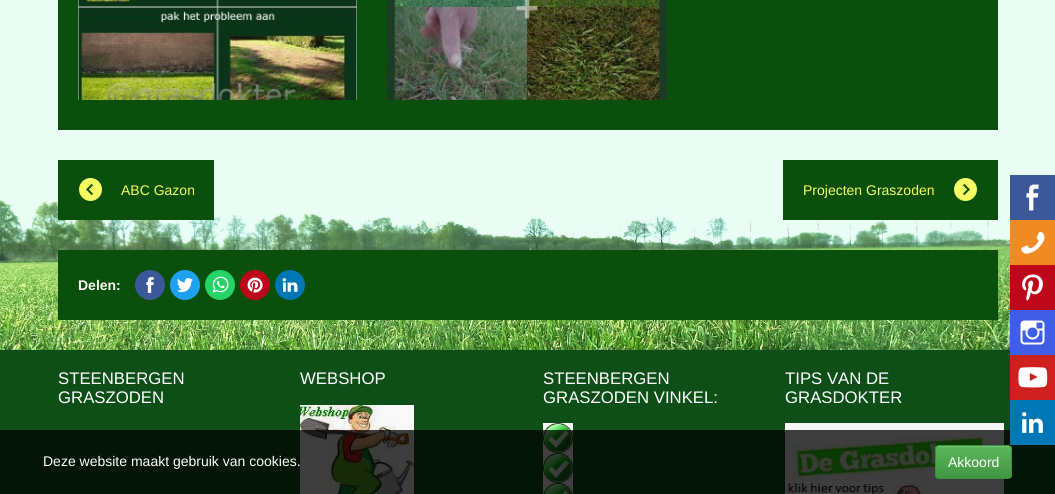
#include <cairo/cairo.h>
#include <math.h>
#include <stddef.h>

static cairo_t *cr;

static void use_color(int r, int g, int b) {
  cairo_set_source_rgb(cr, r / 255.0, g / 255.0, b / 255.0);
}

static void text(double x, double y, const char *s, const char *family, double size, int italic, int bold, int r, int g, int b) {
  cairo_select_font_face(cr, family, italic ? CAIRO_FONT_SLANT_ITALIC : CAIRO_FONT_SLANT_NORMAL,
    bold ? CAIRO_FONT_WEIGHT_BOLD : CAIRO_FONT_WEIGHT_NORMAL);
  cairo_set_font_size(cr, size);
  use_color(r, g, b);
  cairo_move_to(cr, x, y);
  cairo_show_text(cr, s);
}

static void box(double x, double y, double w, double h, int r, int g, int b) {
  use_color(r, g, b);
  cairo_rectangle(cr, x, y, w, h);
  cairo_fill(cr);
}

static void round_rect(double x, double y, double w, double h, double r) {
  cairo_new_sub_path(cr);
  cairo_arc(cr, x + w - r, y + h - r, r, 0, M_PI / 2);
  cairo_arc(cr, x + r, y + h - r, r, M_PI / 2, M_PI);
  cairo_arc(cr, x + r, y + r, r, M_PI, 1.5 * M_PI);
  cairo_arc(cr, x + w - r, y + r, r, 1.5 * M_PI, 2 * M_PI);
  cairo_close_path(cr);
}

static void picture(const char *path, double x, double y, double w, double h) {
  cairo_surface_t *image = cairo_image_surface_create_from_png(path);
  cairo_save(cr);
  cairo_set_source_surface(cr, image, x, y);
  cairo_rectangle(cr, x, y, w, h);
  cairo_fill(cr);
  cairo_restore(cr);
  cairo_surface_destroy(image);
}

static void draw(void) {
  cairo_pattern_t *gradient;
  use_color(255, 255, 255);
  cairo_paint(cr);
  picture("img_01.png", 0, 0, 1055, 350);
  box(58, 0, 940, 130, 10, 79, 12);
  picture("img_02.png", 78, 0, 279, 100);
  picture("img_03.png", 387, 0, 280, 100);
  box(58, 160, 156, 60, 10, 79, 12);
  picture("img_04.png", 79, 178, 23, 23);
  box(783, 160, 215, 60, 10, 79, 12);
  picture("img_05.png", 954, 178, 23, 23);
  box(58, 250, 940, 70, 10, 79, 12);
  picture("img_06.png", 135, 270, 30, 30);
  picture("img_07.png", 170, 270, 30, 30);
  picture("img_08.png", 205, 270, 30, 30);
  picture("img_09.png", 240, 270, 30, 30);
  picture("img_10.png", 275, 270, 30, 30);
  box(0, 350, 1055, 144, 14, 79, 24);
  picture("img_11.png", 300, 405, 114, 89);
  picture("img_12.png", 543, 423, 30, 30);
  picture("img_13.png", 543, 453, 30, 30);
  picture("img_14.png", 543, 483, 30, 11);
  picture("img_15.png", 785, 423, 219, 71);
  box(1010, 175, 45, 45, 59, 89, 152);
  picture("img_16.png", 1026, 184, 13, 27);
  box(1010, 220, 45, 45, 240, 139, 36);
  picture("img_17.png", 1021, 232, 24, 22);
  box(1010, 265, 45, 45, 189, 8, 28);
  picture("img_18.png", 1022, 274, 21, 27);
  box(1010, 310, 45, 45, 64, 93, 230);
  picture("img_19.png", 1020, 320, 25, 25);
  box(1010, 355, 45, 45, 205, 32, 31);
  picture("img_20.png", 1018, 367, 30, 21);
  cairo_set_source_rgba(cr, 0, 0, 0, 0.75);
  cairo_rectangle(cr, 0, 430, 1055, 64);
  cairo_fill(cr);
  box(1010, 400, 45, 45, 0, 119, 181);
  picture("img_21.png", 1022, 412, 21, 21);
  cairo_save(cr);
  round_rect(935, 445, 77, 34, 4);
  cairo_clip(cr);
  gradient = cairo_pattern_create_linear(974, 446, 974, 478);
  cairo_pattern_add_color_stop_rgba(gradient, 0, 0.361, 0.722, 0.361, 1);
  cairo_pattern_add_color_stop_rgba(gradient, 1, 0.255, 0.588, 0.255, 1);
  cairo_set_source(cr, gradient);
  cairo_pattern_destroy(gradient);
  cairo_rectangle(cr, 935, 446, 77, 32);
  cairo_fill(cr);
  cairo_restore(cr);
  use_color(116, 194, 116);
  cairo_new_path(cr);
  cairo_move_to(cr, 939, 447);
  cairo_line_to(cr, 1008, 447);
  cairo_curve_to(cr, 1010, 447, 1011, 448, 1011, 450);
  cairo_curve_to(cr, 1011, 443, 1001, 446, 996, 446);
  cairo_line_to(cr, 950, 446);
  cairo_curve_to(cr, 946, 446, 936, 443, 936, 450);
  cairo_curve_to(cr, 936, 448, 937, 447, 939, 447);
  cairo_close_path(cr);
  cairo_fill(cr);
  round_rect(935.5, 445.5, 76, 33, 3.5);
  use_color(62, 143, 62);
  cairo_set_line_width(cr, 1);
  cairo_stroke(cr);
  text(121, 195, "ABC Gazon", "Liberation Sans", 14, 0, 0, 247, 252, 96);
  text(803, 195, "Projecten Graszoden", "Liberation Sans", 14, 0, 0, 247, 252, 96);
  text(78, 290, "Delen:", "Liberation Sans", 14, 0, 1, 250, 250, 245);
  text(58, 384, "STEENBERGEN", "Liberation Sans", 16.75, 0, 0, 255, 255, 255);
  text(58, 403, "GRASZODEN", "Liberation Sans", 16.75, 0, 0, 255, 255, 255);
  text(300, 384, "WEBSHOP", "Liberation Sans", 16.75, 0, 0, 255, 255, 255);
  text(543, 384, "STEENBERGEN", "Liberation Sans", 16.75, 0, 0, 255, 255, 255);
  text(543, 403, "GRASZODEN VINKEL:", "Liberation Sans", 16.75, 0, 0, 255, 255, 255);
  text(785, 384, "TIPS VAN DE", "Liberation Sans", 16.75, 0, 0, 255, 255, 255);
  text(785, 403, "GRASDOKTER", "Liberation Sans", 16.75, 0, 0, 255, 255, 255);
  text(43, 466, "Deze website maakt gebruik van cookies.", "Liberation Sans", 14, 0, 0, 255, 255, 255);
  text(948, 467, "Akkoord", "Liberation Sans", 14, 0, 0, 255, 255, 255);
}

int main(void) {
  cairo_surface_t *surface = cairo_image_surface_create(CAIRO_FORMAT_RGB24, 1055, 494);
  cr = cairo_create(surface);
  cairo_font_options_t *options = cairo_font_options_create();
  cairo_font_options_set_hint_metrics(options, CAIRO_HINT_METRICS_OFF);
  cairo_font_options_set_hint_style(options, CAIRO_HINT_STYLE_NONE);
  cairo_set_font_options(cr, options);
  cairo_set_miter_limit(cr, 4);
  draw();
  cairo_surface_write_to_png(surface, "out.png");
  cairo_font_options_destroy(options);
  cairo_destroy(cr);
  cairo_surface_destroy(surface);
  return 0;
}
